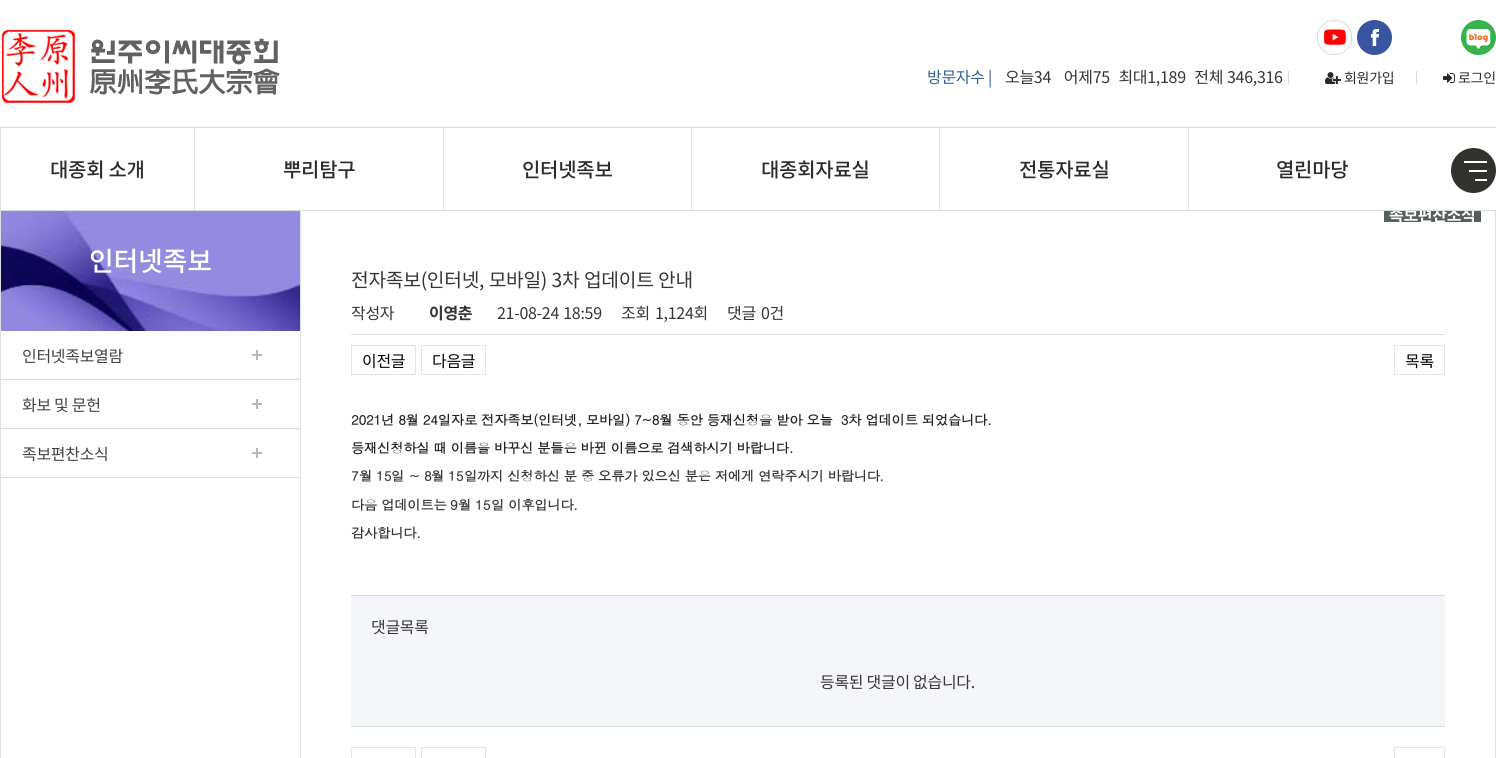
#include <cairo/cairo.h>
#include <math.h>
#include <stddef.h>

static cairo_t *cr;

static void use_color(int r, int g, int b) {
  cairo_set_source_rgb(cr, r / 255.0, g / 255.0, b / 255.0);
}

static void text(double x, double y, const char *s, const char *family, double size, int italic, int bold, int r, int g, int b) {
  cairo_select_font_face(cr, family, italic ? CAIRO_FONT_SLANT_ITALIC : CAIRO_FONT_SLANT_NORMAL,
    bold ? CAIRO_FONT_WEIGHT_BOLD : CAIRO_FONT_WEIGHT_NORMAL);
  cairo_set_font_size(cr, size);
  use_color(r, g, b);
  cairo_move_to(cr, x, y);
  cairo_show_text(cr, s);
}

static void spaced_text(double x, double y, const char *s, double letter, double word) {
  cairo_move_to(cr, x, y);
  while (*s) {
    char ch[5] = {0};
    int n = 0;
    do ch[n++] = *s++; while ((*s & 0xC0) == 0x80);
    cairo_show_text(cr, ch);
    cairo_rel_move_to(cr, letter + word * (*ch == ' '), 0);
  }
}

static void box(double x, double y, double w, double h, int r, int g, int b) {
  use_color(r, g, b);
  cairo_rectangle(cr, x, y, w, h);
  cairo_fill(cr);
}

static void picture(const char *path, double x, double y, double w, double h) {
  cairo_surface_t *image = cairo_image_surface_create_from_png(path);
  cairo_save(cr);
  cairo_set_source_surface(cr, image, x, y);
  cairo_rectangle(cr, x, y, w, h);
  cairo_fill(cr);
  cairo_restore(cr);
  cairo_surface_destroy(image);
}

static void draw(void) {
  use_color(255, 255, 255);
  cairo_paint(cr);
  picture("img_01.png", 2, 30, 278, 73);
  picture("img_02.png", 1317, 20, 35, 35);
  picture("img_03.png", 1357, 20, 35, 35);
  picture("img_04.png", 1461, 20, 35, 35);
  picture("img_05.png", 1325, 72, 16, 12);
  picture("img_06.png", 1443, 73, 12, 10);
  box(0, 127, 1496, 1, 219, 219, 219);
  box(0, 128, 1, 82, 223, 223, 223);
  box(194, 128, 1, 82, 223, 223, 223);
  box(443, 128, 1, 82, 223, 223, 223);
  box(691, 128, 1, 82, 223, 223, 223);
  box(939, 128, 1, 82, 223, 223, 223);
  box(1188, 128, 1, 82, 223, 223, 223);
  use_color(49, 49, 46);
  cairo_arc(cr, 1473.5, 170.5, 22.5, 0, 2 * M_PI);
  cairo_fill(cr);
  box(1464, 161, 23, 2, 255, 255, 255);
  box(1469, 170, 18, 2, 255, 255, 255);
  box(1475, 179, 12, 2, 255, 255, 255);
  box(1495, 211, 1, 547, 223, 223, 223);
  box(0, 211, 1, 547, 223, 223, 223);
  picture("img_07.png", 1, 211, 299, 120);
  picture("img_08.png", 252, 350, 10, 10);
  box(1, 379, 299, 1, 223, 223, 223);
  picture("img_08.png", 252, 399, 10, 10);
  box(1, 428, 299, 1, 223, 223, 223);
  picture("img_08.png", 252, 448, 10, 10);
  box(1, 477, 299, 1, 223, 223, 223);
  box(300, 211, 1, 547, 223, 223, 223);
  box(1384, 211, 97, 11, 86, 94, 96);
  box(351, 334, 1094, 1, 221, 221, 221);
  cairo_rectangle(cr, 351.5, 345.5, 64, 29);
  use_color(229, 229, 229);
  cairo_set_line_width(cr, 1);
  cairo_stroke(cr);
  cairo_rectangle(cr, 421.5, 345.5, 64, 29);
  cairo_stroke(cr);
  cairo_rectangle(cr, 1394.5, 345.5, 50, 29);
  cairo_stroke(cr);
  box(351, 596, 1094, 130, 245, 246, 250);
  box(351, 595, 1094, 1, 207, 222, 216);
  box(351, 726, 1094, 1, 207, 222, 216);
  cairo_rectangle(cr, 351.5, 747.5, 64, 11);
  use_color(229, 229, 229);
  cairo_stroke(cr);
  cairo_rectangle(cr, 421.5, 747.5, 64, 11);
  cairo_stroke(cr);
  cairo_rectangle(cr, 1394.5, 747.5, 50, 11);
  cairo_stroke(cr);
  cairo_select_font_face(cr, "Noto Sans KR", CAIRO_FONT_SLANT_NORMAL, CAIRO_FONT_WEIGHT_NORMAL);
  cairo_set_font_size(cr, 16);
  use_color(50, 97, 150);
  spaced_text(927, 83, "방문자수 |", -0.3, 0);
  use_color(53, 53, 53);
  spaced_text(1005, 83, "오늘34   어제75  최대1,189  전체", -0.3, 1);
  spaced_text(1227, 83, "346,316", -0.3, 0);
  cairo_set_font_size(cr, 12);
  use_color(206, 206, 206);
  spaced_text(1287, 81, "|", -0.3, 0);
  cairo_set_font_size(cr, 14);
  use_color(43, 43, 43);
  spaced_text(1344, 83, "회원가입", -0.3, 0);
  cairo_set_font_size(cr, 12);
  use_color(206, 206, 206);
  spaced_text(1415, 81, "|", -0.3, 0);
  cairo_set_font_size(cr, 14);
  use_color(43, 43, 43);
  spaced_text(1458, 83, "로그인", -0.3, 0);
  cairo_select_font_face(cr, "Noto Sans KR Medium", CAIRO_FONT_SLANT_NORMAL, CAIRO_FONT_WEIGHT_NORMAL);
  cairo_set_font_size(cr, 20);
  spaced_text(50, 177, "대종회 소개", -0.3, 0);
  spaced_text(283, 177, "뿌리탐구", -0.3, 0);
  spaced_text(522, 177, "인터넷족보", -0.3, 0);
  spaced_text(761, 177, "대종회자료실", -0.3, 0);
  spaced_text(1019, 177, "전통자료실", -0.3, 0);
  spaced_text(1276, 177, "열린마당", -0.3, 0);
  cairo_set_font_size(cr, 27);
  use_color(255, 255, 255);
  spaced_text(89, 271, "인터넷족보", -0.3, 0);
  cairo_select_font_face(cr, "Noto Sans KR", CAIRO_FONT_SLANT_NORMAL, CAIRO_FONT_WEIGHT_NORMAL);
  cairo_set_font_size(cr, 16);
  use_color(65, 65, 65);
  spaced_text(22, 362, "인터넷족보열람", -0.3, 0);
  spaced_text(22, 411, "화보 및 문헌", -0.3, 0);
  spaced_text(22, 460, "족보편찬소식", -0.3, 0);
  cairo_select_font_face(cr, "Noto Sans KR", CAIRO_FONT_SLANT_NORMAL, CAIRO_FONT_WEIGHT_BOLD);
  use_color(255, 255, 255);
  spaced_text(1389, 221, "족보편찬소식", -0.3, 0);
  box(0, 210, 1496, 1, 219, 219, 219);
  cairo_select_font_face(cr, "Noto Sans KR", CAIRO_FONT_SLANT_NORMAL, CAIRO_FONT_WEIGHT_NORMAL);
  cairo_set_font_size(cr, 19.25);
  use_color(53, 53, 53);
  spaced_text(351, 287, "전자족보(인터넷, 모바일) 3차 업데이트 안내", -0.3, 0.5);
  cairo_set_font_size(cr, 16);
  spaced_text(351, 319, "작성자", -0.3, 0);
  cairo_select_font_face(cr, "Noto Sans KR", CAIRO_FONT_SLANT_NORMAL, CAIRO_FONT_WEIGHT_BOLD);
  spaced_text(429, 319, "이영춘", -0.3, 0);
  cairo_select_font_face(cr, "Noto Sans KR", CAIRO_FONT_SLANT_NORMAL, CAIRO_FONT_WEIGHT_NORMAL);
  spaced_text(497, 319, "21-08-24 18:59", -0.3, 1);
  spaced_text(621, 319, "조회", -0.3, 0);
  spaced_text(655, 319, "1,124회", -0.3, 0);
  spaced_text(727, 319, "댓글", -0.3, 0);
  spaced_text(761, 319, "0건", -0.3, 0);
  use_color(0, 0, 0);
  spaced_text(362, 367, "이전글", -0.3, 0);
  spaced_text(432, 367, "다음글", -0.3, 0);
  spaced_text(1405, 367, "목록", -0.3, 0);
  cairo_select_font_face(cr, "Dotum", CAIRO_FONT_SLANT_NORMAL, CAIRO_FONT_WEIGHT_BOLD);
  cairo_set_font_size(cr, 13.35);
  use_color(34, 34, 34);
  spaced_text(351, 425, "2021년 8월 24일자로 전자족보(인터넷, 모바일) 7~8월 동안 등재신청을 받아 오늘  3차 업데이트 되었습니다.", -0.3, 0);
  spaced_text(351, 453, "등재신청하실 때 이름을 바꾸신 분들은 바뀐 이름으로 검색하시기 바랍니다.", -0.3, 0);
  text(351, 481, "7", "Dotum", 13.35, 0, 1, 53, 53, 53);
  spaced_text(359, 481, "월", -0.3, 0);
  text(376, 481, "15", "Dotum", 13.35, 0, 1, 53, 53, 53);
  spaced_text(391, 481, "일", -0.3, 0);
  text(409, 481, "~ 8", "Dotum", 13.35, 0, 1, 53, 53, 53);
  spaced_text(431, 481, "월", -0.3, 0);
  text(448, 481, "15", "Dotum", 13.35, 0, 1, 53, 53, 53);
  spaced_text(464, 481, "일까지 신청하신 분 중 오류가 있으신 분은 저에게 연락주시기 바랍니다", -0.3, 0);
  text(879, 481, ".", "Dotum", 13.35, 0, 1, 53, 53, 53);
  spaced_text(351, 510, "다음 업데이트는", -0.3, 0);
  text(450, 510, "9", "Dotum", 13.35, 0, 1, 53, 53, 53);
  spaced_text(458, 510, "월", -0.3, 0);
  text(475, 510, "15", "Dotum", 13.35, 0, 1, 53, 53, 53);
  spaced_text(491, 510, "일 이후입니다", -0.3, 0);
  text(573, 510, ".", "Dotum", 13.35, 0, 1, 53, 53, 53);
  spaced_text(351, 538, "감사합니다", -0.3, 0);
  text(416, 538, ".", "Dotum", 13.35, 0, 1, 53, 53, 53);
  cairo_select_font_face(cr, "Noto Sans KR", CAIRO_FONT_SLANT_NORMAL, CAIRO_FONT_WEIGHT_NORMAL);
  cairo_set_font_size(cr, 16);
  spaced_text(371, 633, "댓글목록", -0.3, 0);
  spaced_text(820, 688, "등록된 댓글이 없습니다.", -0.3, 0);
}

int main(void) {
  cairo_surface_t *surface = cairo_image_surface_create(CAIRO_FORMAT_RGB24, 1496, 758);
  cr = cairo_create(surface);
  cairo_font_options_t *options = cairo_font_options_create();
  cairo_font_options_set_hint_metrics(options, CAIRO_HINT_METRICS_OFF);
  cairo_font_options_set_hint_style(options, CAIRO_HINT_STYLE_NONE);
  cairo_set_font_options(cr, options);
  cairo_set_miter_limit(cr, 4);
  draw();
  cairo_surface_write_to_png(surface, "out.png");
  cairo_font_options_destroy(options);
  cairo_destroy(cr);
  cairo_surface_destroy(surface);
  return 0;
}
